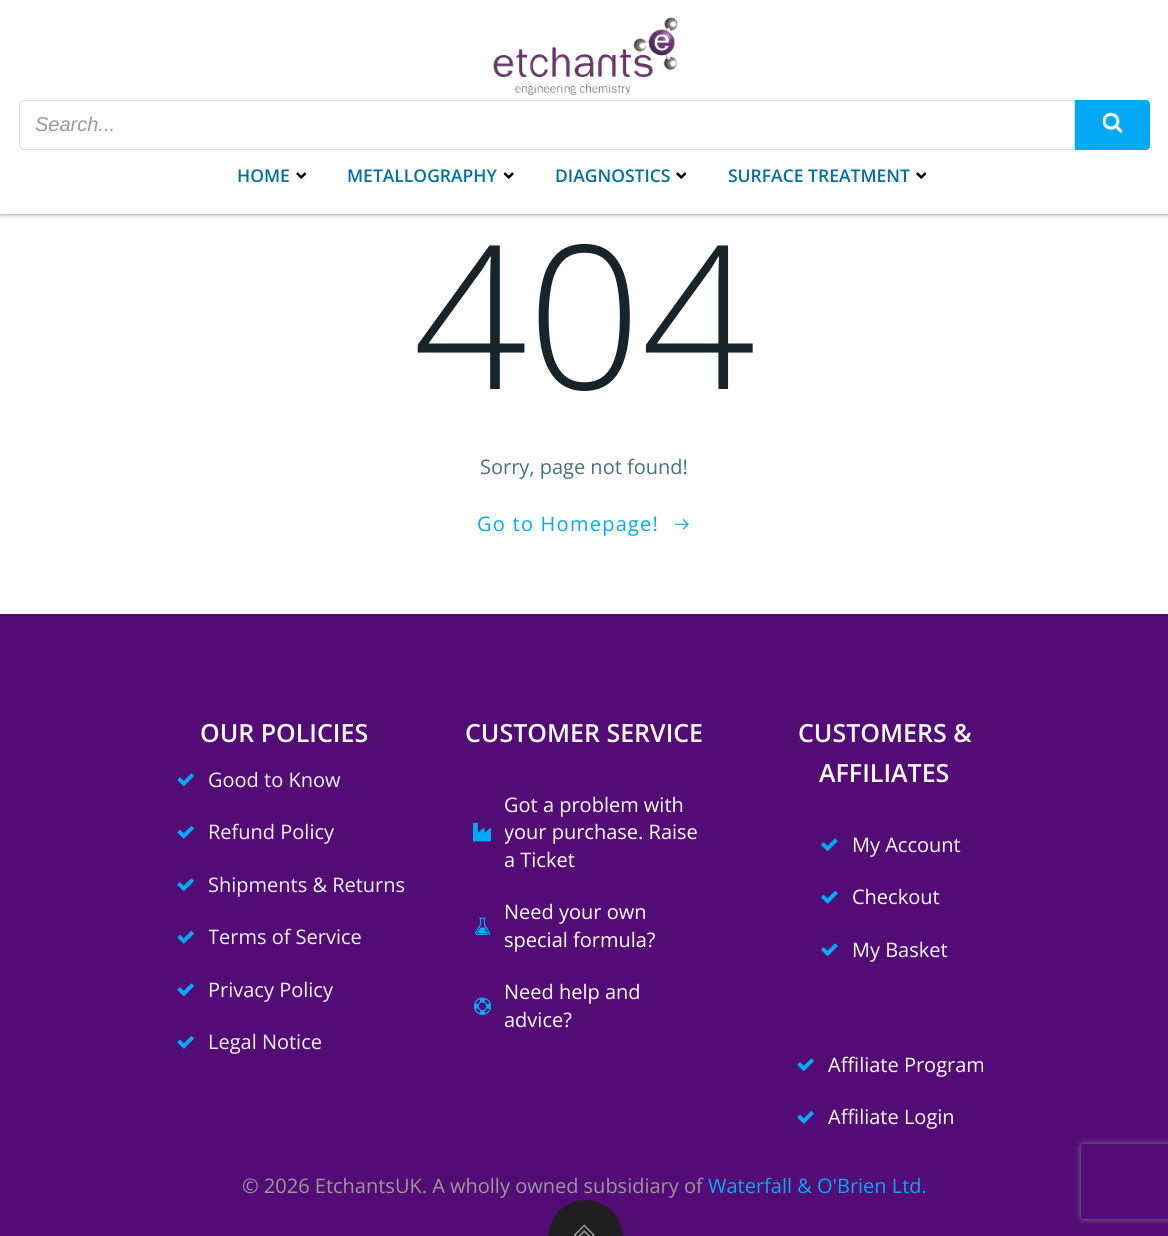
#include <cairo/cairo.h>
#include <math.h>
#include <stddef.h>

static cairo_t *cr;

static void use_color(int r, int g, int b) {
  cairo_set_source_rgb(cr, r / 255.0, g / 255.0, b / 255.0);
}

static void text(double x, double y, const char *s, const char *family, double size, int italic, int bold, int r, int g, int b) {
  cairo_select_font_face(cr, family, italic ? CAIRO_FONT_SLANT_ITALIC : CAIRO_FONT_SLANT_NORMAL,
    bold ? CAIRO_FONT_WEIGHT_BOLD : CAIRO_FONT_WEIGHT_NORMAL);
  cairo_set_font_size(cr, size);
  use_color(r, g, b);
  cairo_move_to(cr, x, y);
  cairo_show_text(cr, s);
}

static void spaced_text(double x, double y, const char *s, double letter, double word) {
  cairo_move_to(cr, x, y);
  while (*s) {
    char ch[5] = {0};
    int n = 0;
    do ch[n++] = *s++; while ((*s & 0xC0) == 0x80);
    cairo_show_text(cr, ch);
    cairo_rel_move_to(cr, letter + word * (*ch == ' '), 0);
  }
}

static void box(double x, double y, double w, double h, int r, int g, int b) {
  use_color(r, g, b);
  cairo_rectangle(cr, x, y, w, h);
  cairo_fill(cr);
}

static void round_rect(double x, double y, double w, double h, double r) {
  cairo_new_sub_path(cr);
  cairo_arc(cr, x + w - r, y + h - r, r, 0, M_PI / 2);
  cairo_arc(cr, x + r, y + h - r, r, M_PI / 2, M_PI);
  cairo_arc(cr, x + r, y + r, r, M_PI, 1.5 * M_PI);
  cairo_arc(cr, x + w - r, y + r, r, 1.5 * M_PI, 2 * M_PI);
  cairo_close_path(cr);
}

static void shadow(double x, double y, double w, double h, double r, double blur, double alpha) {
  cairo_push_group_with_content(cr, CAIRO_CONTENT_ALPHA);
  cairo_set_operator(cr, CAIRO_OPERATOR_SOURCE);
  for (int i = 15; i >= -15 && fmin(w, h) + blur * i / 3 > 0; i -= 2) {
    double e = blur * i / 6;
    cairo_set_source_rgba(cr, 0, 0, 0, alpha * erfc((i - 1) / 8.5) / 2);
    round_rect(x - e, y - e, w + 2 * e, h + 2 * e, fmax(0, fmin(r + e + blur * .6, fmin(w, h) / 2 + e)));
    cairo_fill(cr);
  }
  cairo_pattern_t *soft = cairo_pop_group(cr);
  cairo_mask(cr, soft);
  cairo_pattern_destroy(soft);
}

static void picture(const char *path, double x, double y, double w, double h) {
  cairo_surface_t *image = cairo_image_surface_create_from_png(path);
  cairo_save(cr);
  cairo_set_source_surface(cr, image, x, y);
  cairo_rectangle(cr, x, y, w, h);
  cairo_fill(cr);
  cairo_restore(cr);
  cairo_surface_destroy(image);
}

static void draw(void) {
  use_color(255, 255, 255);
  cairo_paint(cr);
  use_color(0, 0, 0);
  shadow(0, 0, 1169, 214, 0, 2.5, 0.5);
  box(0, 0, 1168, 214, 255, 255, 255);
  picture("img_01.png", 493, 17, 185, 79);
  cairo_new_path(cr);
  cairo_move_to(cr, 25, 100.5);
  cairo_line_to(cr, 1074.5, 100.5);
  cairo_line_to(cr, 1074.5, 149.5);
  cairo_line_to(cr, 25, 149.5);
  cairo_curve_to(cr, 22, 149.5, 19.5, 147, 19.5, 144);
  cairo_line_to(cr, 19.5, 106);
  cairo_curve_to(cr, 19.5, 103, 22, 100.5, 25, 100.5);
  cairo_close_path(cr);
  use_color(222, 222, 222);
  cairo_set_line_width(cr, 1);
  cairo_stroke(cr);
  use_color(3, 169, 244);
  cairo_new_path(cr);
  cairo_move_to(cr, 1075, 100);
  cairo_line_to(cr, 1146, 100);
  cairo_curve_to(cr, 1148, 100, 1150, 102, 1150, 104);
  cairo_line_to(cr, 1150, 146);
  cairo_curve_to(cr, 1150, 148, 1148, 150, 1146, 150);
  cairo_line_to(cr, 1075, 150);
  cairo_close_path(cr);
  cairo_fill(cr);
  picture("img_02.png", 1103, 112, 20, 21);
  picture("img_03.png", 296, 172, 11, 7);
  picture("img_04.png", 503, 172, 11, 7);
  picture("img_03.png", 676, 172, 11, 7);
  picture("img_03.png", 916, 172, 11, 7);
  picture("img_05.png", 674, 519, 15, 11);
  box(0, 614, 1168, 622, 83, 11, 117);
  picture("img_06.png", 177, 773, 17, 13);
  picture("img_07.png", 177, 826, 17, 13);
  picture("img_06.png", 177, 878, 17, 13);
  picture("img_07.png", 177, 931, 17, 13);
  picture("img_06.png", 177, 983, 17, 13);
  picture("img_07.png", 177, 1036, 17, 13);
  picture("img_08.png", 473, 823, 18, 19);
  picture("img_09.png", 475, 917, 15, 18);
  picture("img_10.png", 474, 997, 17, 18);
  picture("img_11.png", 821, 838, 17, 13);
  picture("img_12.png", 821, 891, 17, 13);
  picture("img_11.png", 821, 943, 17, 13);
  picture("img_06.png", 797, 1058, 17, 13);
  picture("img_07.png", 797, 1111, 17, 13);
  use_color(31, 31, 31);
  cairo_new_path(cr);
  cairo_move_to(cr, 585.5, 1200);
  cairo_curve_to(cr, 606, 1200, 623, 1217, 623, 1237.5);
  cairo_line_to(cr, 623, 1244);
  cairo_line_to(cr, 548, 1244);
  cairo_line_to(cr, 548, 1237.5);
  cairo_curve_to(cr, 548, 1217, 565, 1200, 585.5, 1200);
  cairo_close_path(cr);
  cairo_fill(cr);
  picture("img_13.png", 573, 1224, 22, 12);
  cairo_save(cr);
  cairo_set_fill_rule(cr, CAIRO_FILL_RULE_EVEN_ODD);
  cairo_new_path(cr);
  cairo_move_to(cr, 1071, 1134);
  cairo_line_to(cr, 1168, 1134);
  cairo_line_to(cr, 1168, 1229);
  cairo_line_to(cr, 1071, 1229);
  cairo_close_path(cr);
  cairo_move_to(cr, 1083.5, 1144);
  cairo_line_to(cr, 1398.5, 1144);
  cairo_curve_to(cr, 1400, 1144, 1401, 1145, 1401, 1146.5);
  cairo_line_to(cr, 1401, 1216.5);
  cairo_curve_to(cr, 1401, 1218, 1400, 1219, 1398.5, 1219);
  cairo_line_to(cr, 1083.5, 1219);
  cairo_curve_to(cr, 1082, 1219, 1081, 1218, 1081, 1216.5);
  cairo_line_to(cr, 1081, 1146.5);
  cairo_curve_to(cr, 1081, 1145, 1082, 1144, 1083.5, 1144);
  cairo_close_path(cr);
  cairo_clip(cr);
  use_color(128, 128, 128);
  shadow(1081, 1144, 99, 75, 2.5, 3, 1);
  cairo_restore(cr);
  text(35, 131, "Search...", "Liberation Sans", 20, 1, 0, 153, 153, 153);
  text(237, 182, "HOME", "Open Sans SemiBold", 17.5, 0, 0, 2, 110, 159);
  text(347, 182, "METALLOGRAPHY", "Open Sans SemiBold", 17.5, 0, 0, 2, 110, 159);
  text(555, 182, "DIAGNOSTICS", "Open Sans SemiBold", 17.5, 0, 0, 2, 110, 159);
  text(728, 182, "SURFACE TREATMENT", "Open Sans SemiBold", 17.5, 0, 0, 2, 110, 159);
  text(413, 389, "404", "Open Sans Light", 200, 0, 0, 23, 37, 42);
  text(480, 474, "Sorry, page not found!", "Open Sans", 20, 0, 0, 70, 112, 127);
  use_color(3, 169, 244);
  spaced_text(477, 531, "Go to Homepage!", 1.25, 0);
  text(200, 742, "OUR POLICIES", "Open Sans SemiBold", 25, 0, 0, 255, 255, 255);
  text(208, 787, "Good to Know", "Open Sans", 20, 0, 0, 238, 243, 245);
  text(208, 839, "Refund Policy", "Open Sans", 20, 0, 0, 238, 243, 245);
  text(208, 892, "Shipments & Returns", "Open Sans", 20, 0, 0, 238, 243, 245);
  cairo_save(cr);
  cairo_rectangle(cr, 209, 924, 154, 27);
  cairo_clip(cr);
  text(208, 944, "Terms of Service", "Open Sans", 20, 0, 0, 238, 243, 245);
  cairo_restore(cr);
  text(208, 997, "Privacy Policy", "Open Sans", 20, 0, 0, 238, 243, 245);
  text(208, 1049, "Legal Notice", "Open Sans", 20, 0, 0, 238, 243, 245);
  text(465, 742, "CUSTOMER SERVICE", "Open Sans SemiBold", 25, 0, 0, 255, 255, 255);
  text(504, 812, "Got a problem with", "Open Sans", 20, 0, 0, 255, 255, 255);
  cairo_save(cr);
  cairo_rectangle(cr, 505, 791, 204, 83);
  cairo_clip(cr);
  text(504, 839, "your purchase. Raise", "Open Sans", 20, 0, 0, 255, 255, 255);
  cairo_restore(cr);
  text(504, 867, "a Ticket", "Open Sans", 20, 0, 0, 255, 255, 255);
  text(504, 919, "Need your own", "Open Sans", 20, 0, 0, 255, 255, 255);
  text(504, 947, "special formula?", "Open Sans", 20, 0, 0, 255, 255, 255);
  text(504, 999, "Need help and", "Open Sans", 20, 0, 0, 255, 255, 255);
  text(504, 1027, "advice?", "Open Sans", 20, 0, 0, 255, 255, 255);
  text(798, 742, "CUSTOMERS &", "Open Sans SemiBold", 25, 0, 0, 255, 255, 255);
  text(819, 782, "AFFILIATES", "Open Sans SemiBold", 25, 0, 0, 255, 255, 255);
  text(852, 852, "My Account", "Open Sans", 20, 0, 0, 247, 249, 250);
  text(852, 904, "Checkout", "Open Sans", 20, 0, 0, 247, 249, 250);
  text(852, 957, "My Basket", "Open Sans", 20, 0, 0, 247, 249, 250);
  text(828, 1072, "Affiliate Program", "Open Sans", 20, 0, 0, 247, 249, 250);
  text(828, 1124, "Affiliate Login", "Open Sans", 20, 0, 0, 247, 249, 250);
  text(242, 1193, "© 2026 EtchantsUK. A wholly owned subsidiary of", "Open Sans", 20, 0, 0, 153, 153, 153);
  text(708, 1193, "Waterfall & O'Brien Ltd.", "Open Sans", 20, 0, 0, 3, 169, 244);
}

int main(void) {
  cairo_surface_t *surface = cairo_image_surface_create(CAIRO_FORMAT_RGB24, 1168, 1236);
  cr = cairo_create(surface);
  cairo_font_options_t *options = cairo_font_options_create();
  cairo_font_options_set_hint_metrics(options, CAIRO_HINT_METRICS_OFF);
  cairo_font_options_set_hint_style(options, CAIRO_HINT_STYLE_NONE);
  cairo_set_font_options(cr, options);
  cairo_set_miter_limit(cr, 4);
  draw();
  cairo_surface_write_to_png(surface, "out.png");
  cairo_font_options_destroy(options);
  cairo_destroy(cr);
  cairo_surface_destroy(surface);
  return 0;
}
